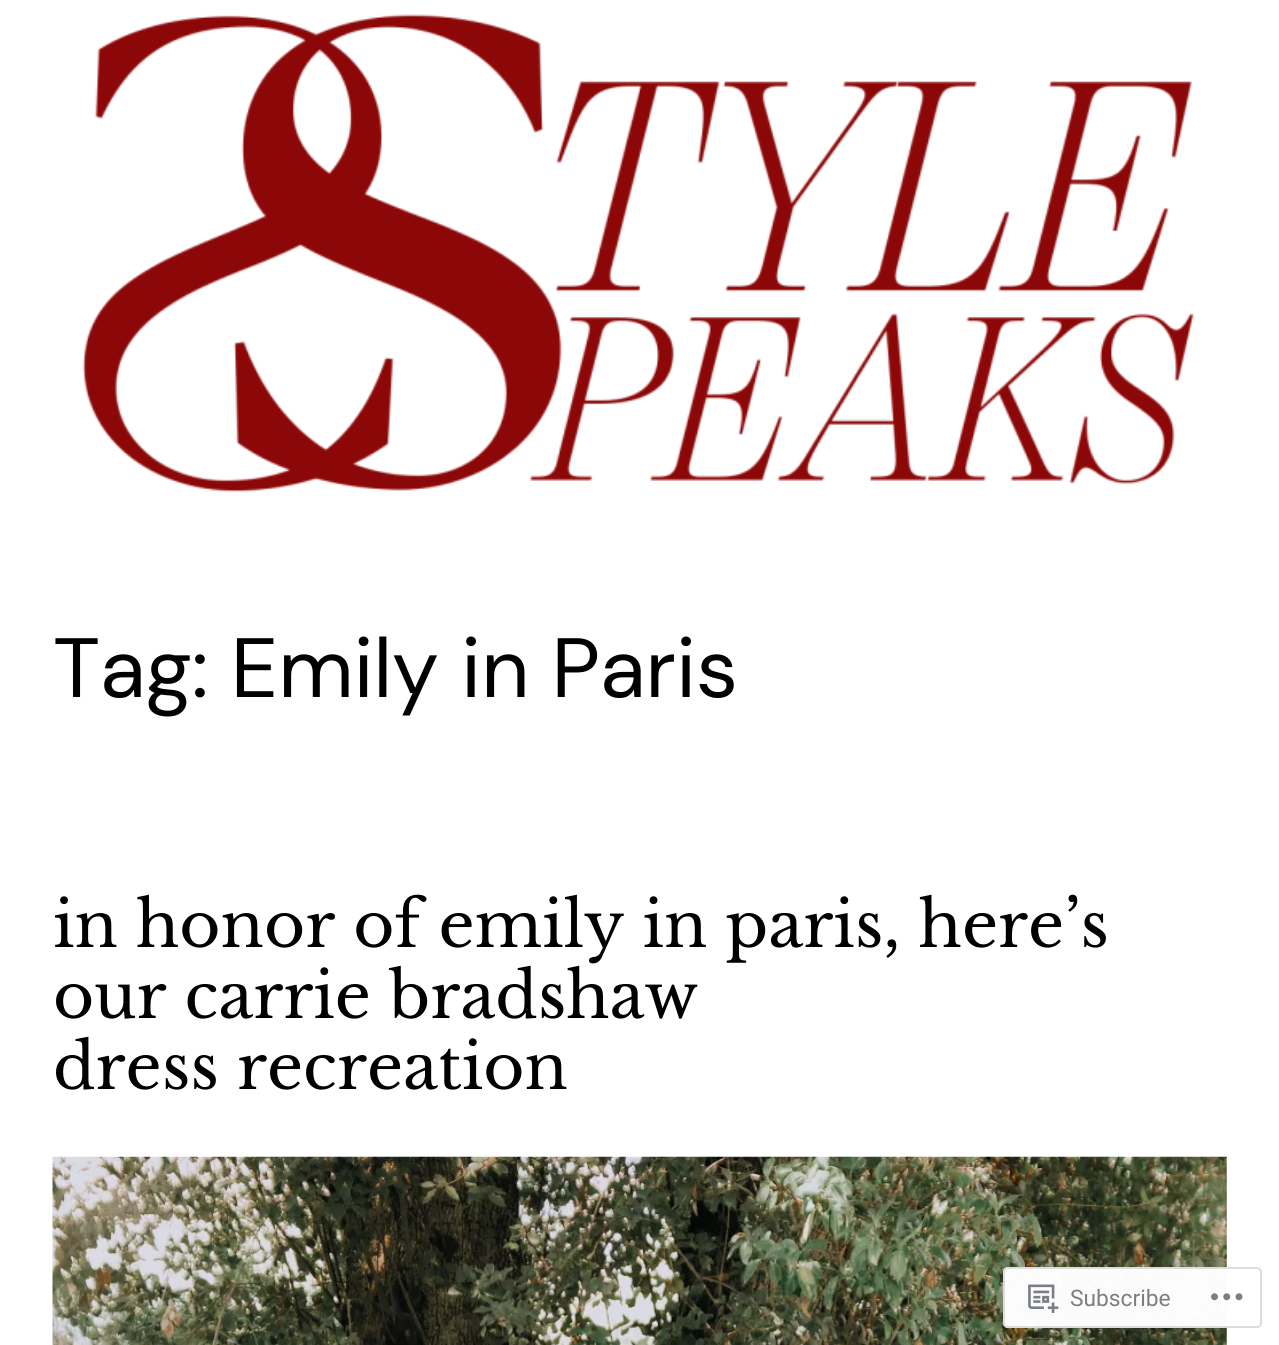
#include <cairo/cairo.h>
#include <math.h>
#include <stddef.h>

static cairo_t *cr;

static void use_color(int r, int g, int b) {
  cairo_set_source_rgb(cr, r / 255.0, g / 255.0, b / 255.0);
}

static void text(double x, double y, const char *s, const char *family, double size, int italic, int bold, int r, int g, int b) {
  cairo_select_font_face(cr, family, italic ? CAIRO_FONT_SLANT_ITALIC : CAIRO_FONT_SLANT_NORMAL,
    bold ? CAIRO_FONT_WEIGHT_BOLD : CAIRO_FONT_WEIGHT_NORMAL);
  cairo_set_font_size(cr, size);
  use_color(r, g, b);
  cairo_move_to(cr, x, y);
  cairo_show_text(cr, s);
}

static void round_rect(double x, double y, double w, double h, double r) {
  cairo_new_sub_path(cr);
  cairo_arc(cr, x + w - r, y + h - r, r, 0, M_PI / 2);
  cairo_arc(cr, x + r, y + h - r, r, M_PI / 2, M_PI);
  cairo_arc(cr, x + r, y + r, r, M_PI, 1.5 * M_PI);
  cairo_arc(cr, x + w - r, y + r, r, 1.5 * M_PI, 2 * M_PI);
  cairo_close_path(cr);
}

static void picture(const char *path, double x, double y, double w, double h) {
  cairo_surface_t *image = cairo_image_surface_create_from_png(path);
  cairo_save(cr);
  cairo_set_source_surface(cr, image, x, y);
  cairo_rectangle(cr, x, y, w, h);
  cairo_fill(cr);
  cairo_restore(cr);
  cairo_surface_destroy(image);
}

static void draw(void) {
  use_color(255, 255, 255);
  cairo_paint(cr);
  picture("img_01.png", 82, 14, 1112, 479);
  picture("img_02.png", 52, 1156, 1175, 189);
  cairo_set_source_rgba(cr, 1, 1, 1, 0.98);
  round_rect(1003, 1267, 259, 61, 5);
  cairo_fill(cr);
  round_rect(1004, 1268, 257, 59, 4);
  cairo_set_source_rgba(cr, 0.863, 0.863, 0.871, 0.98);
  cairo_stroke(cr);
  picture("img_03.png", 1028, 1284, 31, 29);
  picture("img_04.png", 1211, 1293, 32, 8);
  text(53, 697, "Tag: Emily in Paris", "DM Sans", 84, 0, 0, 0, 0, 0);
  text(53, 947, "in honor of emily in paris, here’s", "Libre Baskerville", 63, 0, 0, 0, 0, 0);
  text(53, 1018, "our carrie bradshaw", "Libre Baskerville", 63, 0, 0, 0, 0, 0);
  text(53, 1089, "dress recreation", "Libre Baskerville", 63, 0, 0, 0, 0, 0);
  text(1070, 1306, "Subscribe", "Roboto", 22.75, 0, 0, 123, 127, 132);
}

int main(void) {
  cairo_surface_t *surface = cairo_image_surface_create(CAIRO_FORMAT_RGB24, 1279, 1345);
  cr = cairo_create(surface);
  cairo_font_options_t *options = cairo_font_options_create();
  cairo_font_options_set_hint_metrics(options, CAIRO_HINT_METRICS_OFF);
  cairo_font_options_set_hint_style(options, CAIRO_HINT_STYLE_NONE);
  cairo_set_font_options(cr, options);
  cairo_set_miter_limit(cr, 4);
  draw();
  cairo_surface_write_to_png(surface, "out.png");
  cairo_font_options_destroy(options);
  cairo_destroy(cr);
  cairo_surface_destroy(surface);
  return 0;
}
